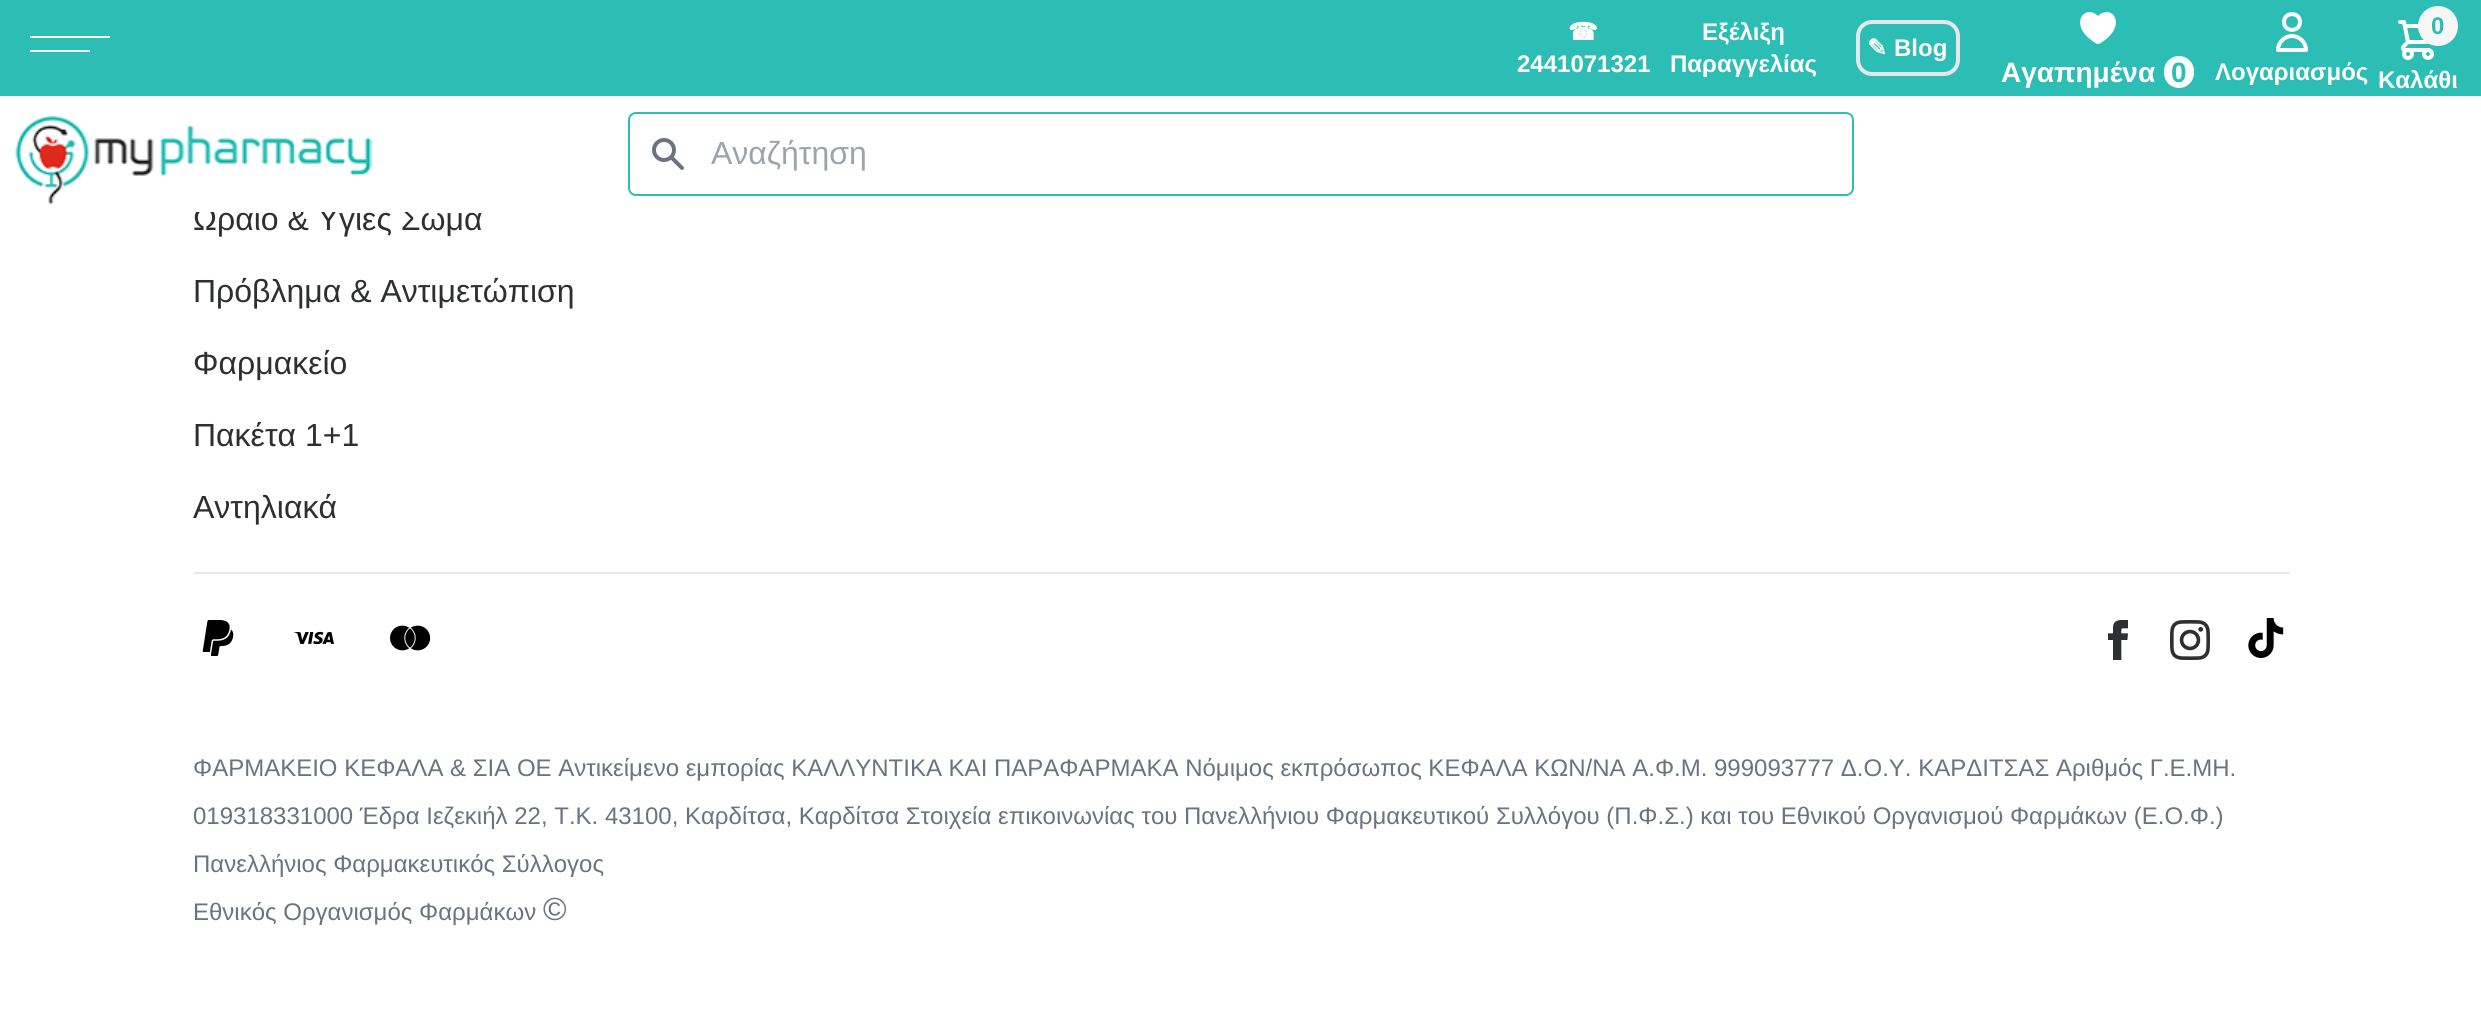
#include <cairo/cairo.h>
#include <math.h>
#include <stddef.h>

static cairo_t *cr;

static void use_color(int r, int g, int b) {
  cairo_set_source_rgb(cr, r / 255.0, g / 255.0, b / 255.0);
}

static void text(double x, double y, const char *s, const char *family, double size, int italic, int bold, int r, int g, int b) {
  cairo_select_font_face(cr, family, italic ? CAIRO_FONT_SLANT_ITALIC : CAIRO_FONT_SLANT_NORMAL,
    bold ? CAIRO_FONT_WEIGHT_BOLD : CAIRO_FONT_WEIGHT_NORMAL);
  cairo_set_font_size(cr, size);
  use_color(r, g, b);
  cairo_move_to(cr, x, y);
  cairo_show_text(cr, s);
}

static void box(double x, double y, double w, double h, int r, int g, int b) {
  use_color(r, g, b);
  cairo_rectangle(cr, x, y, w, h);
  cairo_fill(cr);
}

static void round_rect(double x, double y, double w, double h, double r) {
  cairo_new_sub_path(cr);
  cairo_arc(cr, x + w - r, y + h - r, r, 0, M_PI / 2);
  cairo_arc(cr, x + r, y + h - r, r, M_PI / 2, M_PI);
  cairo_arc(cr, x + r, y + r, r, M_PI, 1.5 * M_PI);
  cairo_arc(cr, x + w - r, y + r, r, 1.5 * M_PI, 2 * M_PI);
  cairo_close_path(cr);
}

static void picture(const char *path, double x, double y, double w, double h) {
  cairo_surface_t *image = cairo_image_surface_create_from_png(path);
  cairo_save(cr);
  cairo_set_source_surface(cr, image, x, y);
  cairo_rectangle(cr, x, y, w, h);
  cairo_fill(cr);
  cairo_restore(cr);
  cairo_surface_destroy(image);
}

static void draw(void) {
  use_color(255, 255, 255);
  cairo_paint(cr);
  box(0, 0, 2481, 96, 44, 190, 180);
  box(30, 50, 60, 2, 246, 246, 246);
  box(30, 36, 80, 2, 246, 246, 246);
  round_rect(1858, 22, 100, 52, 14);
  use_color(229, 231, 235);
  cairo_set_line_width(cr, 4);
  cairo_stroke(cr);
  picture("img_01.png", 2398, 20, 36, 40);
  use_color(246, 246, 246);
  cairo_arc(cr, 2438, 26, 20, 0, 2 * M_PI);
  cairo_fill(cr);
  use_color(255, 255, 255);
  cairo_new_path(cr);
  cairo_move_to(cr, 2098, 44);
  cairo_curve_to(cr, 2095.5, 44, 2090, 39, 2088.5, 38);
  cairo_curve_to(cr, 2070, 21.5, 2086, 4, 2098, 16);
  cairo_curve_to(cr, 2110, 4, 2126, 21, 2107.5, 38);
  cairo_curve_to(cr, 2106, 39, 2100.5, 44, 2098, 44);
  cairo_close_path(cr);
  cairo_fill(cr);
  round_rect(2164, 56, 30, 32, 15);
  cairo_fill(cr);
  cairo_new_path(cr);
  cairo_move_to(cr, 2300, 22);
  cairo_curve_to(cr, 2300, 32.5, 2284, 32.5, 2284, 22);
  cairo_curve_to(cr, 2284, 11.5, 2300, 11.5, 2300, 22);
  cairo_close_path(cr);
  cairo_move_to(cr, 2292, 36);
  cairo_curve_to(cr, 2284.5, 36, 2278, 42.5, 2278, 50);
  cairo_line_to(cr, 2306, 50);
  cairo_curve_to(cr, 2306, 42.5, 2299.5, 36, 2292, 36);
  cairo_close_path(cr);
  cairo_set_line_cap(cr, CAIRO_LINE_CAP_ROUND);
  cairo_set_line_join(cr, CAIRO_LINE_JOIN_ROUND);
  cairo_stroke(cr);
  round_rect(629, 113, 1224, 82, 7);
  use_color(44, 190, 180);
  cairo_set_line_width(cr, 2);
  cairo_set_line_cap(cr, CAIRO_LINE_CAP_BUTT);
  cairo_set_line_join(cr, CAIRO_LINE_JOIN_MITER);
  cairo_stroke(cr);
  picture("img_03.png", 652, 138, 32, 32);
  box(194, 572, 2096, 2, 229, 231, 235);
  picture("img_04.png", 202, 620, 32, 36);
  picture("img_05.png", 294, 631, 40, 14);
  picture("img_06.png", 390, 625, 41, 26);
  picture("img_07.png", 2108, 620, 20, 40);
  picture("img_08.png", 2170, 620, 40, 40);
  picture("img_09.png", 2248, 618, 36, 40);
  text(1568, 40, "☎", "DejaVu Sans", 24, 0, 1, 255, 255, 255);
  text(1517, 72, "2441071321", "Liberation Sans", 24, 0, 1, 255, 255, 255);
  text(1702, 40, "Εξέλιξη", "Liberation Sans", 24, 0, 1, 255, 255, 255);
  text(1670, 72, "Παραγγελίας", "Liberation Sans", 24, 0, 1, 255, 255, 255);
  text(1867, 56, "✎", "DejaVu Sans", 24, 0, 1, 255, 255, 255);
  text(1894, 56, "Blog", "Liberation Sans", 24, 0, 1, 255, 255, 255);
  text(2431, 34, "0", "Liberation Sans", 24, 0, 1, 44, 190, 180);
  text(2378, 88, "Καλάθι", "Liberation Sans", 24, 0, 1, 255, 255, 255);
  text(2001, 82, "Αγαπημένα", "Liberation Sans", 28, 0, 1, 255, 255, 255);
  text(2171, 82, "0", "Liberation Sans", 28, 0, 1, 44, 190, 180);
  text(2215, 80, "Λογαριασμός", "Liberation Sans", 24, 0, 1, 255, 255, 255);
  text(711, 164, "Αναζήτηση", "Liberation Sans", 32, 0, 0, 156, 163, 175);
  text(193, 230, "Ωραίο & Υγιές Σώμα", "Liberation Sans", 32, 0, 0, 46, 47, 48);
  box(196, 205, 240, 7, 255, 255, 255);
  picture("img_02.png", 14, 114, 359, 92);
  text(193, 302, "Πρόβλημα & Αντιμετώπιση", "Liberation Sans", 32, 0, 0, 46, 47, 48);
  text(193, 374, "Φαρμακείο", "Liberation Sans", 32, 0, 0, 46, 47, 48);
  text(193, 446, "Πακέτα 1+1", "Liberation Sans", 32, 0, 0, 46, 47, 48);
  text(193, 518, "Αντηλιακά", "Liberation Sans", 32, 0, 0, 46, 47, 48);
  text(193, 776, "ΦΑΡΜΑΚΕΙΟ ΚΕΦΑΛΑ & ΣΙΑ ΟΕ Αντικείμενο εμπορίας ΚΑΛΛΥΝΤΙΚΑ ΚΑΙ ΠΑΡΑΦΑΡΜΑΚΑ Νόμιμος εκπρόσωπος ΚΕΦΑΛΑ ΚΩΝ/ΝΑ Α.Φ.Μ. 999093777 Δ.Ο.Υ. ΚΑΡΔΙΤΣΑΣ Αριθμός Γ.Ε.ΜΗ.", "Liberation Sans", 24, 0, 0, 107, 114, 128);
  text(193, 824, "019318331000 Έδρα Ιεζεκιήλ 22, Τ.Κ. 43100, Καρδίτσα, Καρδίτσα Στοιχεία επικοινωνίας του Πανελλήνιου Φαρμακευτικού Συλλόγου (Π.Φ.Σ.) και του Εθνικού Οργανισμού Φαρμάκων (Ε.Ο.Φ.)", "Liberation Sans", 24, 0, 0, 107, 114, 128);
  text(193, 872, "Πανελλήνιος Φαρμακευτικός Σύλλογος", "Liberation Sans", 24, 0, 0, 107, 114, 128);
  text(193, 920, "Εθνικός Οργανισμός Φαρμάκων", "Liberation Sans", 24, 0, 0, 107, 114, 128);
  text(543, 920, "©", "Liberation Sans", 32, 0, 0, 107, 114, 128);
}

int main(void) {
  cairo_surface_t *surface = cairo_image_surface_create(CAIRO_FORMAT_RGB24, 2481, 1019);
  cr = cairo_create(surface);
  cairo_font_options_t *options = cairo_font_options_create();
  cairo_font_options_set_hint_metrics(options, CAIRO_HINT_METRICS_OFF);
  cairo_font_options_set_hint_style(options, CAIRO_HINT_STYLE_NONE);
  cairo_set_font_options(cr, options);
  cairo_set_miter_limit(cr, 4);
  draw();
  cairo_surface_write_to_png(surface, "out.png");
  cairo_font_options_destroy(options);
  cairo_destroy(cr);
  cairo_surface_destroy(surface);
  return 0;
}
